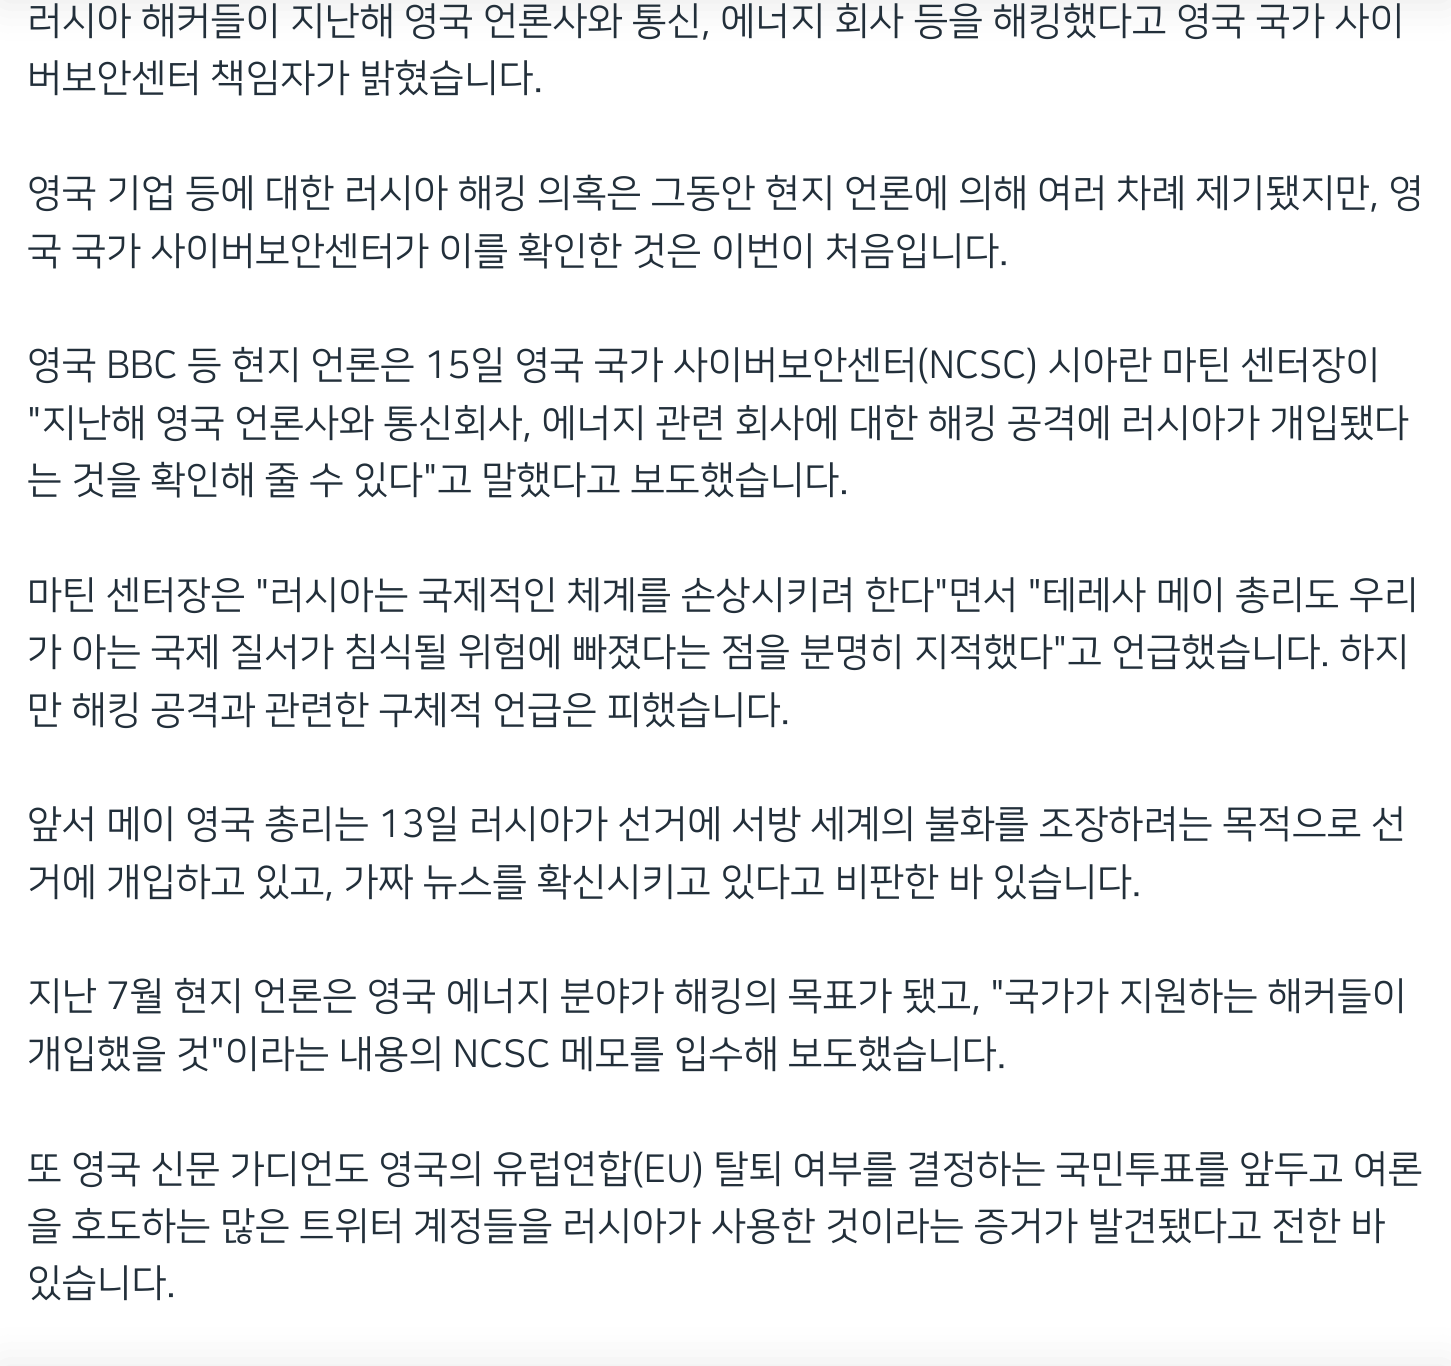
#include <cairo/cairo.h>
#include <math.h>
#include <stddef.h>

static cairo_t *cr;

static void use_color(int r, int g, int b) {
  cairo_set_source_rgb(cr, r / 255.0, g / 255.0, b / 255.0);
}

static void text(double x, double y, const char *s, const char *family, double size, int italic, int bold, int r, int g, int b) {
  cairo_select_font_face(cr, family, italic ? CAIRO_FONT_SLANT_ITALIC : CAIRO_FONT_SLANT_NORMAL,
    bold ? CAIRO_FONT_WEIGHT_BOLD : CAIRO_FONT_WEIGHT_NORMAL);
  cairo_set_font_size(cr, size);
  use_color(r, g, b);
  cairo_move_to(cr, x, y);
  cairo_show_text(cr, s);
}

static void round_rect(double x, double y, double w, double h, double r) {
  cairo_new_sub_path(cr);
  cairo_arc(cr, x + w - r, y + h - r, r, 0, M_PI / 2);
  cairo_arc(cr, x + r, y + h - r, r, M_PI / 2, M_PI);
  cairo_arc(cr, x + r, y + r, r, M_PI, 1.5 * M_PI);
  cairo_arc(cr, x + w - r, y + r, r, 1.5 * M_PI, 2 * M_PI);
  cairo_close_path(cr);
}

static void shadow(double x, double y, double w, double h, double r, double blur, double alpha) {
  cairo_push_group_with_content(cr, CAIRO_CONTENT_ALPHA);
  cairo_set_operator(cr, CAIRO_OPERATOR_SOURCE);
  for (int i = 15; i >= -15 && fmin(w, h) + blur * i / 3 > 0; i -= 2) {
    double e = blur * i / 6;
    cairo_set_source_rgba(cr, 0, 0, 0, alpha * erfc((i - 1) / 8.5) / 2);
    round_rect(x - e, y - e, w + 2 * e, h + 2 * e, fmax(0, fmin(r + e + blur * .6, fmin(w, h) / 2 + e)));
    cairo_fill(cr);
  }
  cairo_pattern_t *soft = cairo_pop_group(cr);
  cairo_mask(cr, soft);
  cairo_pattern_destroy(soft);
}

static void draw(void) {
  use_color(255, 255, 255);
  cairo_paint(cr);
  use_color(0, 0, 0);
  shadow(0, -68, 1451, 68, 0, 22.5, 0.1);
  shadow(0, 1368, 1451, 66, 0, 22.5, 0.1);
  text(27, 33, "러시아 해커들이 지난해 영국 언론사와 통신, 에너지 회사 등을 해킹했다고 영국 국가 사이", "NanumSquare", 38.25, 0, 0, 34, 47, 58);
  text(27, 90, "버보안센터 책임자가 밝혔습니다.", "NanumSquare", 38.25, 0, 0, 34, 47, 58);
  text(27, 205, "영국 기업 등에 대한 러시아 해킹 의혹은 그동안 현지 언론에 의해 여러 차례 제기됐지만, 영", "NanumSquare", 38.25, 0, 0, 34, 47, 58);
  text(27, 263, "국 국가 사이버보안센터가 이를 확인한 것은 이번이 처음입니다.", "NanumSquare", 38.25, 0, 0, 34, 47, 58);
  text(27, 377, "영국 BBC 등 현지 언론은 15일 영국 국가 사이버보안센터(NCSC) 시아란 마틴 센터장이", "NanumSquare", 38.25, 0, 0, 34, 47, 58);
  text(27, 435, "\"지난해 영국 언론사와 통신회사, 에너지 관련 회사에 대한 해킹 공격에 러시아가 개입됐다", "NanumSquare", 38.25, 0, 0, 34, 47, 58);
  text(27, 492, "는 것을 확인해 줄 수 있다\"고 말했다고 보도했습니다.", "NanumSquare", 38.25, 0, 0, 34, 47, 58);
  text(27, 607, "마틴 센터장은 \"러시아는 국제적인 체계를 손상시키려 한다\"면서 \"테레사 메이 총리도 우리", "NanumSquare", 38.25, 0, 0, 34, 47, 58);
  text(27, 664, "가 아는 국제 질서가 침식될 위험에 빠졌다는 점을 분명히 지적했다\"고 언급했습니다. 하지", "NanumSquare", 38.25, 0, 0, 34, 47, 58);
  text(27, 722, "만 해킹 공격과 관련한 구체적 언급은 피했습니다.", "NanumSquare", 38.25, 0, 0, 34, 47, 58);
  text(27, 836, "앞서 메이 영국 총리는 13일 러시아가 선거에 서방 세계의 불화를 조장하려는 목적으로 선", "NanumSquare", 38.25, 0, 0, 34, 47, 58);
  text(27, 894, "거에 개입하고 있고, 가짜 뉴스를 확신시키고 있다고 비판한 바 있습니다.", "NanumSquare", 38.25, 0, 0, 34, 47, 58);
  text(27, 1008, "지난 7월 현지 언론은 영국 에너지 분야가 해킹의 목표가 됐고, \"국가가 지원하는 해커들이", "NanumSquare", 38.25, 0, 0, 34, 47, 58);
  text(27, 1066, "개입했을 것\"이라는 내용의 NCSC 메모를 입수해 보도했습니다.", "NanumSquare", 38.25, 0, 0, 34, 47, 58);
  text(27, 1181, "또 영국 신문 가디언도 영국의 유럽연합(EU) 탈퇴 여부를 결정하는 국민투표를 앞두고 여론", "NanumSquare", 38.25, 0, 0, 34, 47, 58);
  text(27, 1238, "을 호도하는 많은 트위터 계정들을 러시아가 사용한 것이라는 증거가 발견됐다고 전한 바", "NanumSquare", 38.25, 0, 0, 34, 47, 58);
  text(27, 1295, "있습니다.", "NanumSquare", 38.25, 0, 0, 34, 47, 58);
}

int main(void) {
  cairo_surface_t *surface = cairo_image_surface_create(CAIRO_FORMAT_RGB24, 1451, 1366);
  cr = cairo_create(surface);
  cairo_font_options_t *options = cairo_font_options_create();
  cairo_font_options_set_hint_metrics(options, CAIRO_HINT_METRICS_OFF);
  cairo_font_options_set_hint_style(options, CAIRO_HINT_STYLE_NONE);
  cairo_set_font_options(cr, options);
  cairo_set_miter_limit(cr, 4);
  draw();
  cairo_surface_write_to_png(surface, "out.png");
  cairo_font_options_destroy(options);
  cairo_destroy(cr);
  cairo_surface_destroy(surface);
  return 0;
}
